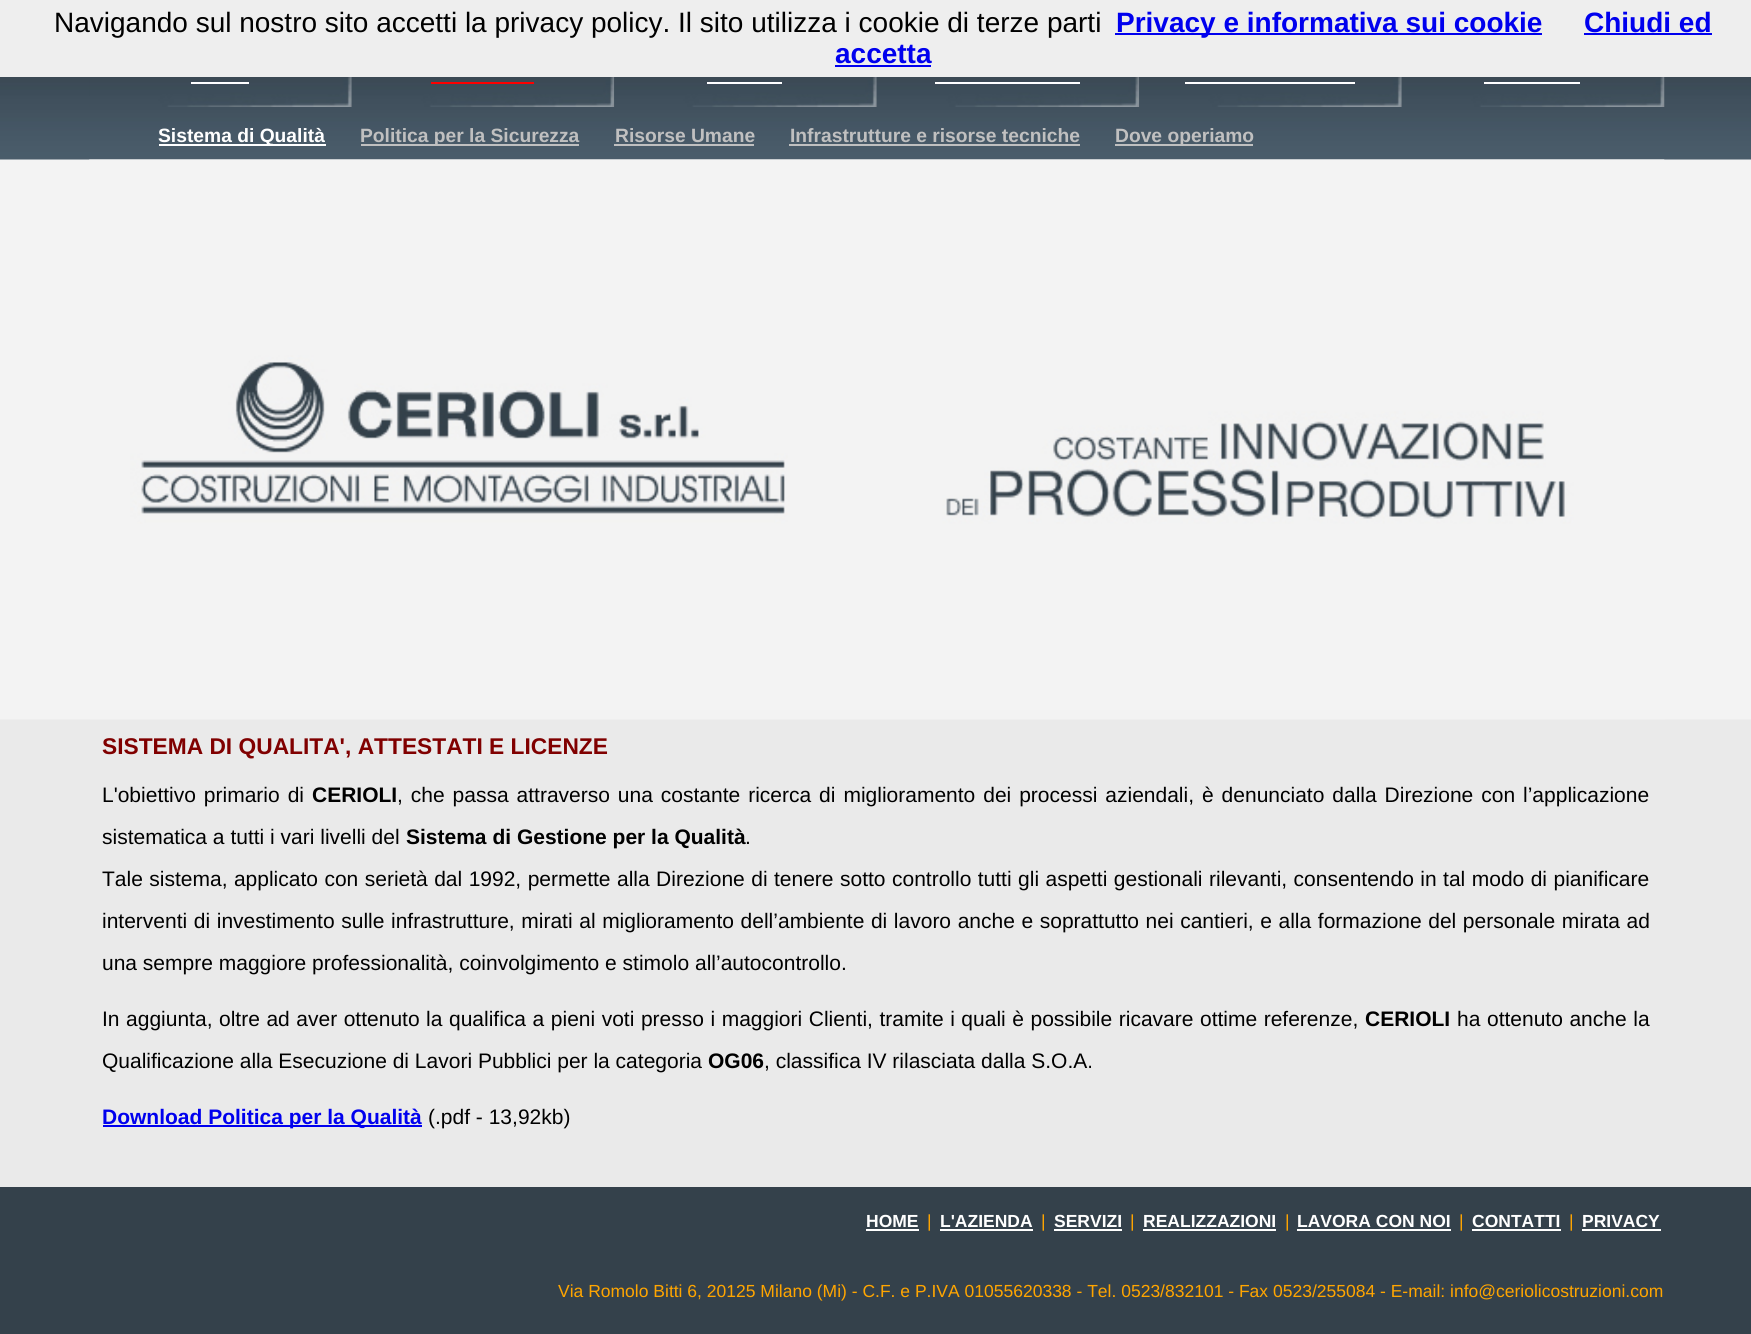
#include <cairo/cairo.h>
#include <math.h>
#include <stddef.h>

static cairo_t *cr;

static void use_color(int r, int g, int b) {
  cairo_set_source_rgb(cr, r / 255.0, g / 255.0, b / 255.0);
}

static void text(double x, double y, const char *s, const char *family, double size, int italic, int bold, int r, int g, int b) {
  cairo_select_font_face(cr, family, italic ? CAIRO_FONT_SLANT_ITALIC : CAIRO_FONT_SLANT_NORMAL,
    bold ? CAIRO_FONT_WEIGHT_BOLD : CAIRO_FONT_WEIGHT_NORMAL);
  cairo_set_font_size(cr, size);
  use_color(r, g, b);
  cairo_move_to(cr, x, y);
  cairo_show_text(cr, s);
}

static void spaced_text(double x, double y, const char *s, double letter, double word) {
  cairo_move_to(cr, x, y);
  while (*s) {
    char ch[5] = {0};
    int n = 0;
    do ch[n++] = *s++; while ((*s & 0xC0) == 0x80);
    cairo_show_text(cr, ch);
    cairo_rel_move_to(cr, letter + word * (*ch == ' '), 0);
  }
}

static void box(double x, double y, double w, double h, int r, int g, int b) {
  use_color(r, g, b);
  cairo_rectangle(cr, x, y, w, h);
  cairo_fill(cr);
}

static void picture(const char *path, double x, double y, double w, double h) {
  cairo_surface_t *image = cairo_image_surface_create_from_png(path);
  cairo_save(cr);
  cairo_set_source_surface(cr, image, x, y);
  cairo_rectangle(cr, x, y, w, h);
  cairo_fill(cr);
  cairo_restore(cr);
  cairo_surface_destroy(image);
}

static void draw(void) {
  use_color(255, 255, 255);
  cairo_paint(cr);
  picture("img_01.png", 0, 77, 1751, 1110);
  box(0, 0, 1751, 77, 238, 238, 238);
  box(1115, 33, 427, 2, 0, 0, 238);
  box(1584, 33, 128, 2, 0, 0, 238);
  box(835, 65, 96, 2, 0, 0, 238);
  picture("img_02.png", 89, 77, 263, 30);
  box(191, 82, 58, 2, 255, 255, 255);
  picture("img_03.png", 351, 77, 264, 30);
  box(431, 82, 103, 2, 255, 0, 0);
  picture("img_04.png", 614, 77, 263, 30);
  box(707, 82, 75, 2, 255, 255, 255);
  picture("img_05.png", 876, 77, 264, 30);
  box(935, 82, 145, 2, 255, 255, 255);
  picture("img_06.png", 1139, 77, 263, 30);
  box(1185, 82, 170, 2, 255, 255, 255);
  picture("img_05.png", 1401, 77, 264, 30);
  box(1484, 82, 96, 2, 255, 255, 255);
  box(159, 144, 167, 2, 255, 255, 255);
  box(361, 144, 218, 2, 192, 192, 192);
  box(614, 144, 140, 2, 192, 192, 192);
  box(789, 144, 291, 2, 192, 192, 192);
  box(1115, 144, 138, 2, 192, 192, 192);
  box(89, 719, 1575, 1, 234, 234, 234);
  picture("img_07.png", 89, 159, 1576, 561);
  box(103, 1125, 319, 2, 0, 0, 238);
  box(0, 1187, 1751, 147, 52, 65, 75);
  box(866, 1229, 53, 2, 255, 255, 255);
  box(940, 1229, 93, 2, 255, 255, 255);
  box(1054, 1229, 68, 2, 255, 255, 255);
  box(1143, 1229, 133, 2, 255, 255, 255);
  box(1297, 1229, 154, 2, 255, 255, 255);
  box(1472, 1229, 89, 2, 255, 255, 255);
  box(1582, 1229, 79, 2, 255, 255, 255);
  text(54, 32, "Navigando sul nostro sito accetti la privacy policy. Il sito utilizza i cookie di terze parti", "Liberation Sans", 28, 0, 0, 0, 0, 0);
  text(1116, 32, "Privacy e informativa sui cookie", "Liberation Sans", 28, 0, 1, 0, 0, 238);
  text(1584, 32, "Chiudi ed", "Liberation Sans", 28, 0, 1, 0, 0, 238);
  text(835, 63, "accetta", "Liberation Sans", 28, 0, 1, 0, 0, 238);
  text(158, 142, "Sistema di Qualità", "Liberation Sans", 19.25, 0, 1, 255, 255, 255);
  text(360, 142, "Politica per la Sicurezza", "Liberation Sans", 19.25, 0, 1, 192, 192, 192);
  text(615, 142, "Risorse Umane", "Liberation Sans", 19.25, 0, 1, 192, 192, 192);
  text(790, 142, "Infrastrutture e risorse tecniche", "Liberation Sans", 19.25, 0, 1, 192, 192, 192);
  text(1115, 142, "Dove operiamo", "Liberation Sans", 19.25, 0, 1, 192, 192, 192);
  text(102, 754, "SISTEMA DI QUALITA', ATTESTATI E LICENZE", "Liberation Sans", 22.75, 0, 1, 128, 0, 0);
  cairo_select_font_face(cr, "Liberation Sans", CAIRO_FONT_SLANT_NORMAL, CAIRO_FONT_WEIGHT_NORMAL);
  cairo_set_font_size(cr, 21);
  use_color(0, 0, 0);
  spaced_text(102, 802, "L'obiettivo primario di", 0, 2.1);
  text(312, 802, "CERIOLI", "Liberation Sans", 21, 0, 1, 0, 0, 0);
  cairo_select_font_face(cr, "Liberation Sans", CAIRO_FONT_SLANT_NORMAL, CAIRO_FONT_WEIGHT_NORMAL);
  spaced_text(397, 802, ", che passa attraverso una costante ricerca di miglioramento dei processi aziendali, è denunciato dalla Direzione con l’applicazione", 0, 2.1);
  text(102, 844, "sistematica a tutti i vari livelli del", "Liberation Sans", 21, 0, 0, 0, 0, 0);
  text(406, 844, "Sistema di Gestione per la Qualità", "Liberation Sans", 21, 0, 1, 0, 0, 0);
  text(745, 844, ".", "Liberation Sans", 21, 0, 0, 0, 0, 0);
  spaced_text(102, 886, "Tale sistema, applicato con serietà dal 1992, permette alla Direzione di tenere sotto controllo tutti gli aspetti gestionali rilevanti, consentendo in tal modo di pianificare", 0, 0.6);
  spaced_text(102, 928, "interventi di investimento sulle infrastrutture, mirati al miglioramento dell’ambiente di lavoro anche e soprattutto nei cantieri, e alla formazione del personale mirata ad", 0, 0.75);
  text(102, 970, "una sempre maggiore professionalità, coinvolgimento e stimolo all’autocontrollo.", "Liberation Sans", 21, 0, 0, 0, 0, 0);
  spaced_text(102, 1026, "In aggiunta, oltre ad aver ottenuto la qualifica a pieni voti presso i maggiori Clienti, tramite i quali è possibile ricavare ottime referenze,", 0, 0.7);
  text(1365, 1026, "CERIOLI", "Liberation Sans", 21, 0, 1, 0, 0, 0);
  cairo_select_font_face(cr, "Liberation Sans", CAIRO_FONT_SLANT_NORMAL, CAIRO_FONT_WEIGHT_NORMAL);
  spaced_text(1457, 1026, "ha ottenuto anche la", 0, 0.75);
  text(102, 1068, "Qualificazione alla Esecuzione di Lavori Pubblici per la categoria", "Liberation Sans", 21, 0, 0, 0, 0, 0);
  text(708, 1068, "OG06", "Liberation Sans", 21, 0, 1, 0, 0, 0);
  text(764, 1068, ", classifica IV rilasciata dalla S.O.A.", "Liberation Sans", 21, 0, 0, 0, 0, 0);
  text(102, 1124, "Download Politica per la Qualità", "Liberation Sans", 21, 0, 1, 0, 0, 238);
  text(428, 1124, "(.pdf - 13,92kb)", "Liberation Sans", 21, 0, 0, 0, 0, 0);
  text(866, 1227, "HOME", "Liberation Sans", 17.5, 0, 1, 255, 255, 255);
  text(927, 1227, "|", "Liberation Sans", 17.5, 0, 0, 255, 165, 0);
  text(940, 1227, "L'AZIENDA", "Liberation Sans", 17.5, 0, 1, 255, 255, 255);
  text(1041, 1227, "|", "Liberation Sans", 17.5, 0, 0, 255, 165, 0);
  text(1054, 1227, "SERVIZI", "Liberation Sans", 17.5, 0, 1, 255, 255, 255);
  text(1130, 1227, "|", "Liberation Sans", 17.5, 0, 0, 255, 165, 0);
  text(1143, 1227, "REALIZZAZIONI", "Liberation Sans", 17.5, 0, 1, 255, 255, 255);
  text(1285, 1227, "|", "Liberation Sans", 17.5, 0, 0, 255, 165, 0);
  text(1297, 1227, "LAVORA CON NOI", "Liberation Sans", 17.5, 0, 1, 255, 255, 255);
  text(1459, 1227, "|", "Liberation Sans", 17.5, 0, 0, 255, 165, 0);
  text(1472, 1227, "CONTATTI", "Liberation Sans", 17.5, 0, 1, 255, 255, 255);
  text(1569, 1227, "|", "Liberation Sans", 17.5, 0, 0, 255, 165, 0);
  text(1582, 1227, "PRIVACY", "Liberation Sans", 17.5, 0, 1, 255, 255, 255);
  text(558, 1297, "Via Romolo Bitti 6, 20125 Milano (Mi) - C.F. e P.IVA 01055620338 - Tel. 0523/832101 - Fax 0523/255084 - E-mail: info@ceriolicostruzioni.com", "Liberation Sans", 17.5, 0, 0, 255, 165, 0);
}

int main(void) {
  cairo_surface_t *surface = cairo_image_surface_create(CAIRO_FORMAT_RGB24, 1751, 1334);
  cr = cairo_create(surface);
  cairo_font_options_t *options = cairo_font_options_create();
  cairo_font_options_set_hint_metrics(options, CAIRO_HINT_METRICS_OFF);
  cairo_font_options_set_hint_style(options, CAIRO_HINT_STYLE_NONE);
  cairo_set_font_options(cr, options);
  cairo_set_miter_limit(cr, 4);
  draw();
  cairo_surface_write_to_png(surface, "out.png");
  cairo_font_options_destroy(options);
  cairo_destroy(cr);
  cairo_surface_destroy(surface);
  return 0;
}
